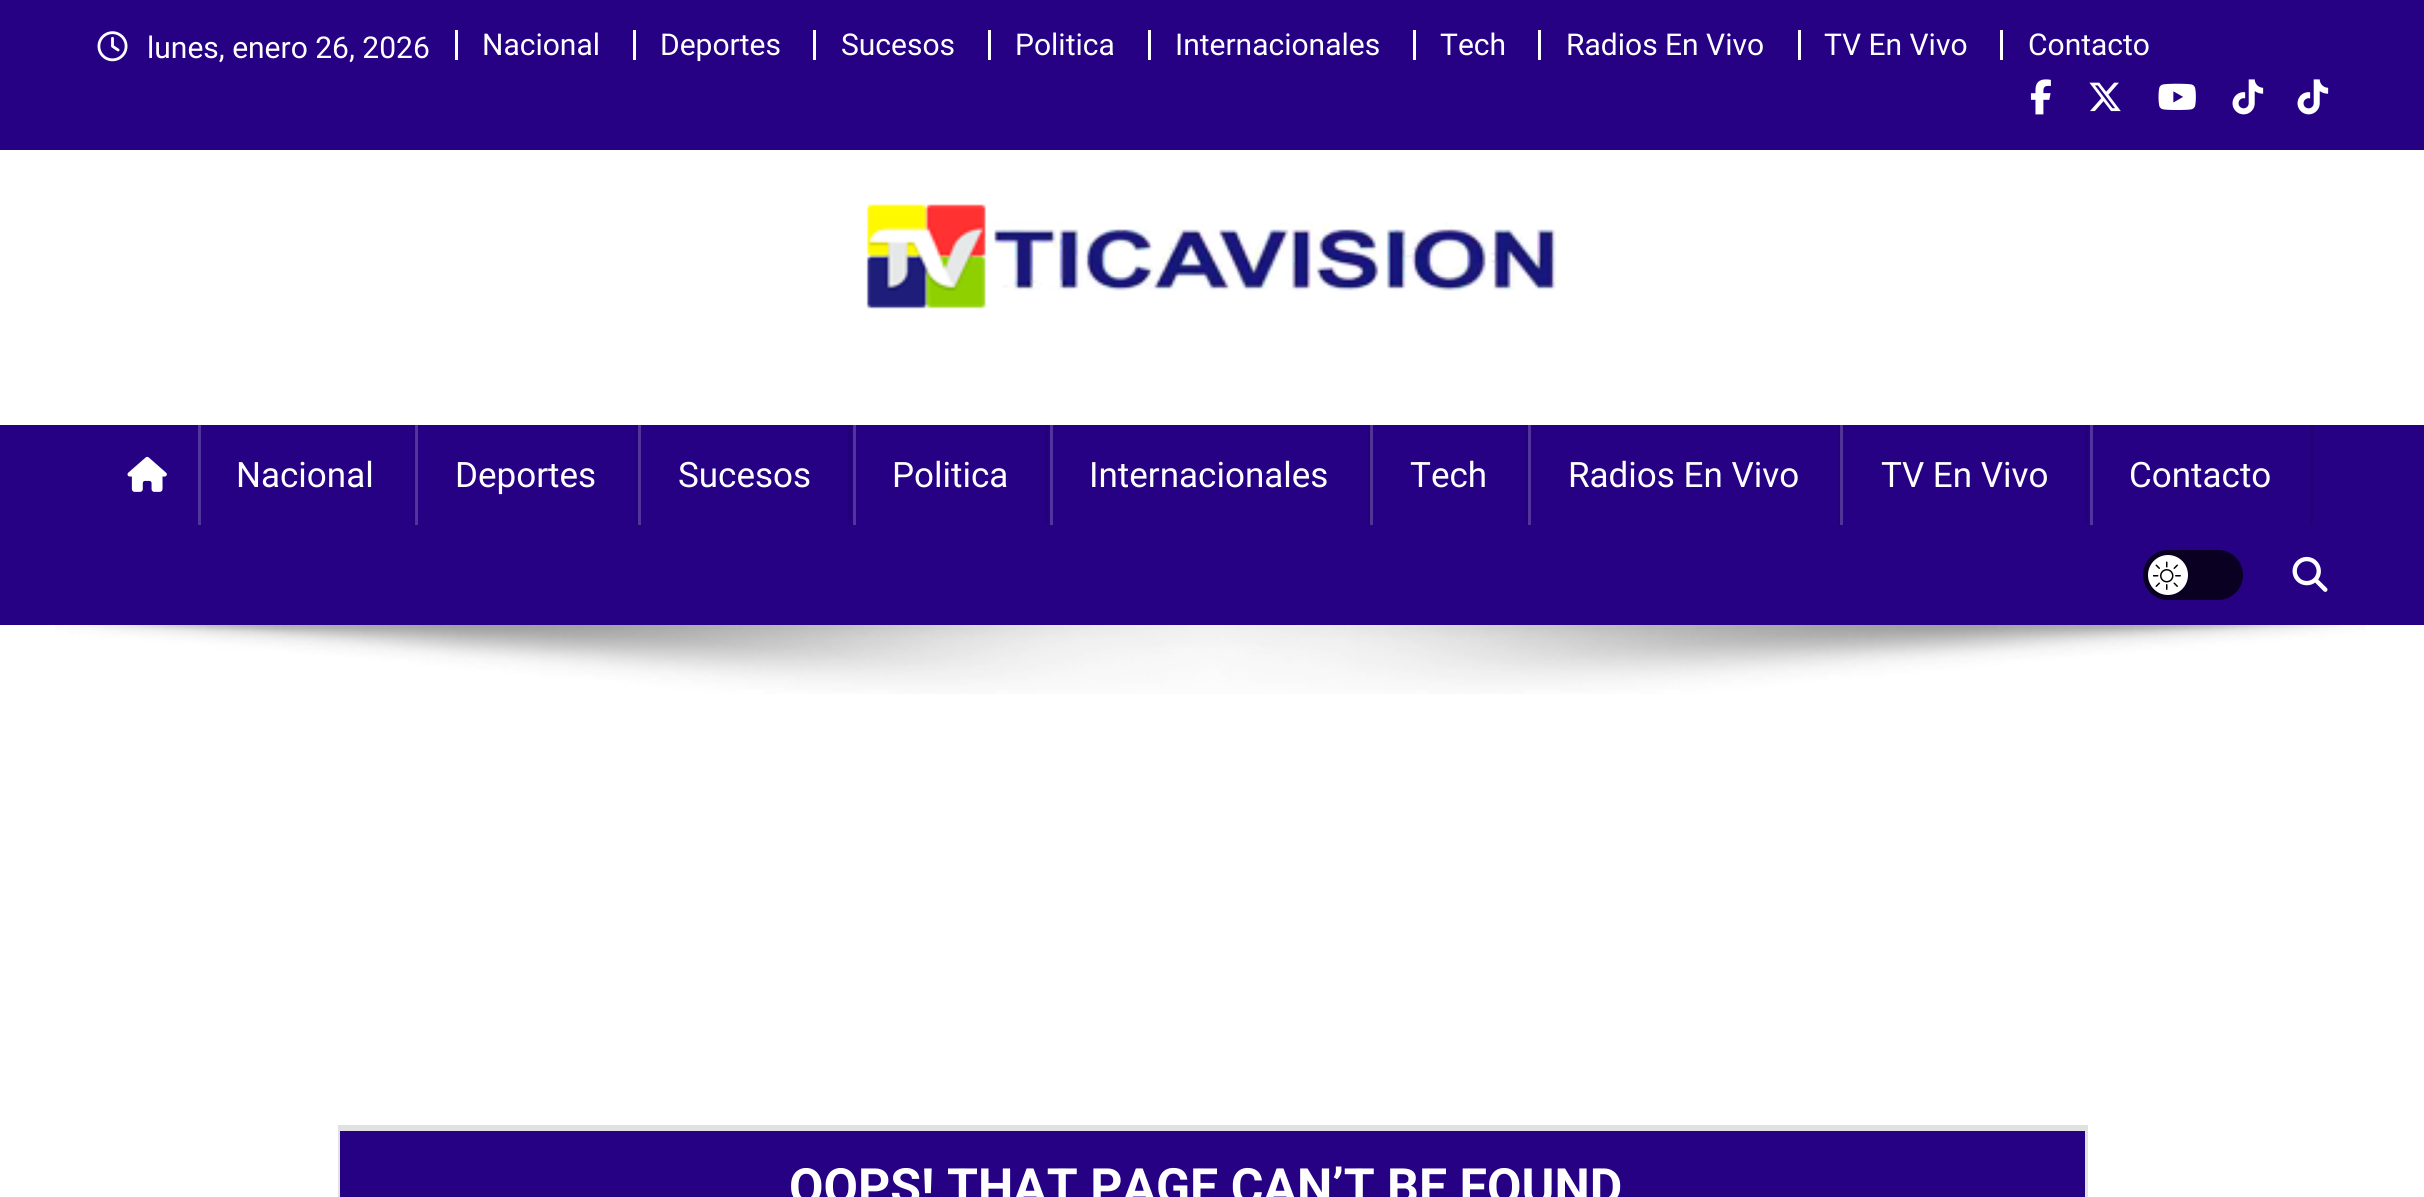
#include <cairo/cairo.h>
#include <math.h>
#include <stddef.h>

static cairo_t *cr;

static void use_color(int r, int g, int b) {
  cairo_set_source_rgb(cr, r / 255.0, g / 255.0, b / 255.0);
}

static void text(double x, double y, const char *s, const char *family, double size, int italic, int bold, int r, int g, int b) {
  cairo_select_font_face(cr, family, italic ? CAIRO_FONT_SLANT_ITALIC : CAIRO_FONT_SLANT_NORMAL,
    bold ? CAIRO_FONT_WEIGHT_BOLD : CAIRO_FONT_WEIGHT_NORMAL);
  cairo_set_font_size(cr, size);
  use_color(r, g, b);
  cairo_move_to(cr, x, y);
  cairo_show_text(cr, s);
}

static void box(double x, double y, double w, double h, int r, int g, int b) {
  use_color(r, g, b);
  cairo_rectangle(cr, x, y, w, h);
  cairo_fill(cr);
}

static void round_rect(double x, double y, double w, double h, double r) {
  cairo_new_sub_path(cr);
  cairo_arc(cr, x + w - r, y + h - r, r, 0, M_PI / 2);
  cairo_arc(cr, x + r, y + h - r, r, M_PI / 2, M_PI);
  cairo_arc(cr, x + r, y + r, r, M_PI, 1.5 * M_PI);
  cairo_arc(cr, x + w - r, y + r, r, 1.5 * M_PI, 2 * M_PI);
  cairo_close_path(cr);
}

static void picture(const char *path, double x, double y, double w, double h) {
  cairo_surface_t *image = cairo_image_surface_create_from_png(path);
  cairo_save(cr);
  cairo_set_source_surface(cr, image, x, y);
  cairo_rectangle(cr, x, y, w, h);
  cairo_fill(cr);
  cairo_restore(cr);
  cairo_surface_destroy(image);
}

static void draw(void) {
  use_color(255, 255, 255);
  cairo_paint(cr);
  box(0, 0, 2424, 150, 38, 1, 132);
  picture("img_01.png", 97, 31, 31, 31);
  box(455, 30, 3, 30, 255, 255, 255);
  box(633, 30, 3, 30, 255, 255, 255);
  box(813, 30, 3, 30, 255, 255, 255);
  box(988, 30, 3, 30, 255, 255, 255);
  box(1148, 30, 3, 30, 255, 255, 255);
  box(1413, 30, 3, 30, 255, 255, 255);
  box(1538, 30, 3, 30, 255, 255, 255);
  box(1798, 30, 3, 30, 255, 255, 255);
  box(2000, 30, 3, 30, 255, 255, 255);
  picture("img_02.png", 2030, 79, 21, 36);
  picture("img_03.png", 2089, 82, 32, 30);
  picture("img_04.png", 2158, 83, 38, 27);
  picture("img_05.png", 2232, 79, 32, 36);
  picture("img_05.png", 2297, 79, 32, 36);
  picture("img_06.png", 866, 204, 696, 105);
  box(0, 425, 2424, 200, 38, 1, 132);
  box(1841, 425, 2, 100, 81, 52, 157);
  box(1371, 425, 2, 100, 81, 52, 157);
  box(416, 425, 2, 100, 81, 52, 157);
  picture("img_07.png", 127, 456, 40, 36);
  box(413, 425, 2, 100, 35, 1, 121);
  box(415, 425, 1, 100, 79, 52, 148);
  box(198, 425, 3, 100, 81, 52, 157);
  box(635, 425, 3, 100, 35, 1, 121);
  box(848, 425, 3, 100, 35, 1, 121);
  box(638, 425, 3, 100, 81, 52, 157);
  box(1045, 425, 3, 100, 35, 1, 121);
  box(853, 425, 3, 100, 81, 52, 157);
  box(1368, 425, 2, 100, 35, 1, 121);
  box(1370, 425, 1, 100, 79, 52, 148);
  box(1050, 425, 3, 100, 81, 52, 157);
  box(1525, 425, 3, 100, 35, 1, 121);
  box(1838, 425, 2, 100, 35, 1, 121);
  box(1840, 425, 1, 100, 79, 52, 148);
  box(1528, 425, 3, 100, 81, 52, 157);
  box(2085, 425, 3, 100, 35, 1, 121);
  box(2310, 425, 3, 100, 35, 1, 121);
  box(2090, 425, 3, 100, 81, 52, 157);
  use_color(10, 0, 33);
  round_rect(2143, 550, 100, 50, 25);
  cairo_fill(cr);
  use_color(255, 255, 255);
  cairo_arc(cr, 2168, 575, 20, 0, 2 * M_PI);
  cairo_fill(cr);
  picture("img_08.png", 2153, 561, 28, 29);
  picture("img_09.png", 2292, 556, 36, 36);
  picture("img_10.png", 55, 625, 2311, 69);
  cairo_rectangle(cr, 339.5, 1126.5, 1747, 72);
  use_color(225, 225, 225);
  cairo_set_line_width(cr, 3);
  cairo_stroke(cr);
  box(340, 1131, 1745, 66, 38, 1, 132);
  box(340, 1128, 1745, 3, 225, 225, 225);
  text(147, 58, "lunes, enero 26, 2026", "Roboto", 30, 0, 0, 255, 255, 255);
  text(482, 55, "Nacional", "Roboto", 30, 0, 0, 255, 255, 255);
  text(660, 55, "Deportes", "Roboto", 30, 0, 0, 255, 255, 255);
  text(841, 55, "Sucesos", "Roboto", 30, 0, 0, 255, 255, 255);
  text(1015, 55, "Politica", "Roboto", 30, 0, 0, 255, 255, 255);
  text(1175, 55, "Internacionales", "Roboto", 30, 0, 0, 255, 255, 255);
  text(1440, 55, "Tech", "Roboto", 30, 0, 0, 255, 255, 255);
  text(1566, 55, "Radios En Vivo", "Roboto", 30, 0, 0, 255, 255, 255);
  text(1824, 55, "TV En Vivo", "Roboto", 30, 0, 0, 255, 255, 255);
  text(2028, 55, "Contacto", "Roboto", 30, 0, 0, 255, 255, 255);
  text(236, 487, "Nacional", "Roboto", 35, 0, 0, 255, 255, 255);
  text(455, 487, "Deportes", "Roboto", 35, 0, 0, 255, 255, 255);
  text(678, 487, "Sucesos", "Roboto", 35, 0, 0, 255, 255, 255);
  text(892, 487, "Politica", "Roboto", 35, 0, 0, 255, 255, 255);
  text(1089, 487, "Internacionales", "Roboto", 35, 0, 0, 255, 255, 255);
  text(1410, 487, "Tech", "Roboto", 35, 0, 0, 255, 255, 255);
  text(1568, 487, "Radios En Vivo", "Roboto", 35, 0, 0, 255, 255, 255);
  text(1881, 487, "TV En Vivo", "Roboto", 35, 0, 0, 255, 255, 255);
  text(2129, 487, "Contacto", "Roboto", 35, 0, 0, 255, 255, 255);
  text(789, 1204, "OOPS! THAT PAGE CAN’T BE FOUND", "Roboto", 50, 0, 1, 255, 255, 255);
}

int main(void) {
  cairo_surface_t *surface = cairo_image_surface_create(CAIRO_FORMAT_RGB24, 2424, 1197);
  cr = cairo_create(surface);
  cairo_font_options_t *options = cairo_font_options_create();
  cairo_font_options_set_hint_metrics(options, CAIRO_HINT_METRICS_OFF);
  cairo_font_options_set_hint_style(options, CAIRO_HINT_STYLE_NONE);
  cairo_set_font_options(cr, options);
  cairo_set_miter_limit(cr, 4);
  draw();
  cairo_surface_write_to_png(surface, "out.png");
  cairo_font_options_destroy(options);
  cairo_destroy(cr);
  cairo_surface_destroy(surface);
  return 0;
}
